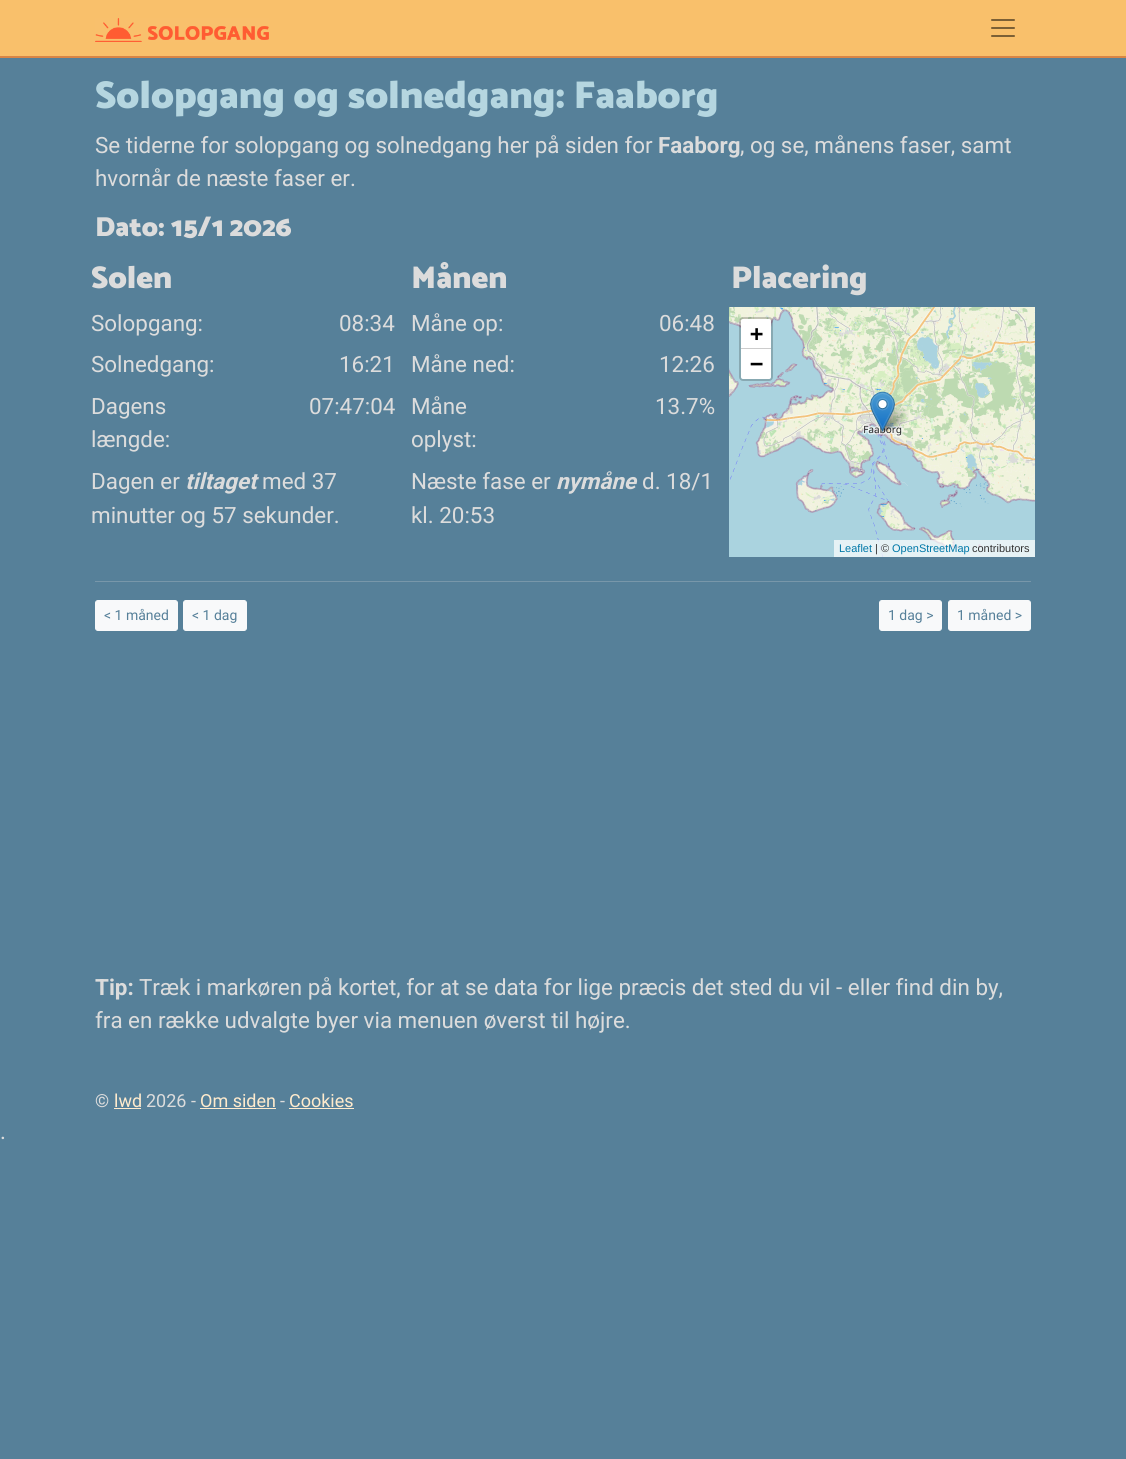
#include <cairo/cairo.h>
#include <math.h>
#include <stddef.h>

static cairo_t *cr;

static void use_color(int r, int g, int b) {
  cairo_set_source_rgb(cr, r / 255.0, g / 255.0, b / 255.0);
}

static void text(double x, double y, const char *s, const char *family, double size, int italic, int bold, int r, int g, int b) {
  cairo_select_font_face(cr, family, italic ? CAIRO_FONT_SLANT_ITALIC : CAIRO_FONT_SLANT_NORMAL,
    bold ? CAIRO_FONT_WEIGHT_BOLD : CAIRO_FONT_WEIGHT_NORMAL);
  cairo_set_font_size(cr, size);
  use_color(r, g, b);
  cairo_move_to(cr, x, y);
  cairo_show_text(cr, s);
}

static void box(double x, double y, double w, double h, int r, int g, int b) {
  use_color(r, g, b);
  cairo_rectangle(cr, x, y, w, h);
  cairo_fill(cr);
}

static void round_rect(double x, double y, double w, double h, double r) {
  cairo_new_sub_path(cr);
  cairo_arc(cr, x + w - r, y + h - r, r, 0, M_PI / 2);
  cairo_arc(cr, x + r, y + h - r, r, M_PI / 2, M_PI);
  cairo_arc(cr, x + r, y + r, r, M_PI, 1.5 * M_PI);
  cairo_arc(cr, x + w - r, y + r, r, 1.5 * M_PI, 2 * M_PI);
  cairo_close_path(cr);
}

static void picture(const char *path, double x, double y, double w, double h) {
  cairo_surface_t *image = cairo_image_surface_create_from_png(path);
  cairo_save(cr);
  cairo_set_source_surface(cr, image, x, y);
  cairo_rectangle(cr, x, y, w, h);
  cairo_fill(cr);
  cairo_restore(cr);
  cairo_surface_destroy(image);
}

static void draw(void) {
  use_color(86, 128, 153);
  cairo_paint(cr);
  box(0, 0, 1126, 56, 249, 192, 107);
  box(0, 56, 1126, 2, 217, 133, 69);
  picture("img_01.png", 95, 18, 174, 24);
  picture("img_02.png", 991, 19, 24, 18);
  picture("img_03.png", 729, 307, 119, 18);
  picture("img_04.png", 848, 307, 187, 18);
  picture("img_05.png", 729, 325, 119, 232);
  picture("img_06.png", 848, 325, 187, 232);
  picture("img_08.png", 880, 404, 29, 28);
  picture("img_07.png", 870, 391, 25, 41);
  round_rect(740, 318, 32, 62, 3);
  cairo_set_source_rgba(cr, 0, 0, 0, 0.2);
  cairo_stroke(cr);
  use_color(255, 255, 255);
  cairo_new_path(cr);
  cairo_move_to(cr, 743, 319);
  cairo_line_to(cr, 769, 319);
  cairo_curve_to(cr, 770, 319, 771, 320, 771, 321);
  cairo_line_to(cr, 771, 349);
  cairo_line_to(cr, 741, 349);
  cairo_line_to(cr, 741, 321);
  cairo_curve_to(cr, 741, 320, 742, 319, 743, 319);
  cairo_close_path(cr);
  cairo_fill(cr);
  box(741, 348, 30, 1, 204, 204, 204);
  use_color(255, 255, 255);
  cairo_new_path(cr);
  cairo_move_to(cr, 741, 349);
  cairo_line_to(cr, 771, 349);
  cairo_line_to(cr, 771, 377);
  cairo_curve_to(cr, 771, 378, 770, 379, 769, 379);
  cairo_line_to(cr, 743, 379);
  cairo_curve_to(cr, 742, 379, 741, 378, 741, 377);
  cairo_close_path(cr);
  cairo_fill(cr);
  cairo_set_source_rgba(cr, 1, 1, 1, 0.7);
  cairo_rectangle(cr, 834, 540, 201, 17);
  cairo_fill(cr);
  box(95, 581, 936, 1, 120, 151, 170);
  use_color(248, 249, 250);
  round_rect(95.5, 600.5, 82, 30, 2.5);
  cairo_fill_preserve(cr);
  cairo_set_line_width(cr, 1);
  cairo_stroke(cr);
  round_rect(183.5, 600.5, 63, 30, 2.5);
  cairo_fill_preserve(cr);
  cairo_stroke(cr);
  round_rect(879.5, 600.5, 62, 30, 2.5);
  cairo_fill_preserve(cr);
  cairo_stroke(cr);
  round_rect(948.5, 600.5, 82, 30, 2.5);
  cairo_fill_preserve(cr);
  cairo_stroke(cr);
  box(114, 1108, 27, 1, 255, 235, 205);
  box(200, 1108, 76, 1, 255, 235, 205);
  box(289, 1108, 65, 1, 255, 235, 205);
  text(95, 108, "Solopgang og solnedgang: Faaborg", "Catamaran Thin", 38.9, 0, 0, 181, 214, 224);
  text(95, 153, "Se tiderne for solopgang og solnedgang her på siden for", "Roboto", 22.4, 0, 0, 220, 220, 220);
  text(658, 153, "Faaborg", "Roboto", 22.4, 0, 1, 220, 220, 220);
  text(740, 153, ", og se, månens faser, samt", "Roboto", 22.4, 0, 0, 220, 220, 220);
  text(95, 186, "hvornår de næste faser er.", "Roboto", 22.4, 0, 0, 220, 220, 220);
  text(95, 236, "Dato: 15/1 2026", "Catamaran Thin", 27.5, 0, 0, 220, 220, 220);
  text(91, 288, "Solen", "Catamaran Thin", 31.5, 0, 0, 220, 220, 220);
  text(91, 331, "Solopgang:", "Roboto", 22.4, 0, 0, 220, 220, 220);
  text(339, 331, "08:34", "Roboto", 22.4, 0, 0, 220, 220, 220);
  text(91, 372, "Solnedgang:", "Roboto", 22.4, 0, 0, 220, 220, 220);
  text(339, 372, "16:21", "Roboto", 22.4, 0, 0, 220, 220, 220);
  text(91, 414, "Dagens", "Roboto", 22.4, 0, 0, 220, 220, 220);
  text(91, 447, "længde:", "Roboto", 22.4, 0, 0, 220, 220, 220);
  text(309, 414, "07:47:04", "Roboto", 22.4, 0, 0, 220, 220, 220);
  text(91, 489, "Dagen er", "Roboto", 22.4, 0, 0, 220, 220, 220);
  text(185, 489, "tiltaget", "Roboto", 22.4, 1, 1, 220, 220, 220);
  text(262, 489, "med 37", "Roboto", 22.4, 0, 0, 220, 220, 220);
  text(91, 523, "minutter og 57 sekunder.", "Roboto", 22.4, 0, 0, 220, 220, 220);
  text(411, 288, "Månen", "Catamaran Thin", 31.5, 0, 0, 220, 220, 220);
  text(411, 331, "Måne op:", "Roboto", 22.4, 0, 0, 220, 220, 220);
  text(659, 331, "06:48", "Roboto", 22.4, 0, 0, 220, 220, 220);
  text(411, 372, "Måne ned:", "Roboto", 22.4, 0, 0, 220, 220, 220);
  text(659, 372, "12:26", "Roboto", 22.4, 0, 0, 220, 220, 220);
  text(411, 414, "Måne", "Roboto", 22.4, 0, 0, 220, 220, 220);
  text(411, 447, "oplyst:", "Roboto", 22.4, 0, 0, 220, 220, 220);
  text(655, 414, "13.7%", "Roboto", 22.4, 0, 0, 220, 220, 220);
  text(411, 489, "Næste fase er", "Roboto", 22.4, 0, 0, 220, 220, 220);
  text(556, 489, "nymåne", "Roboto", 22.4, 1, 1, 220, 220, 220);
  text(642, 489, "d. 18/1", "Roboto", 22.4, 0, 0, 220, 220, 220);
  text(411, 523, "kl. 20:53", "Roboto", 22.4, 0, 0, 220, 220, 220);
  text(731, 288, "Placering", "Catamaran Thin", 31.5, 0, 0, 220, 220, 220);
  text(750, 341, "+", "DejaVu Sans Mono", 22, 0, 1, 0, 0, 0);
  text(750, 371, "−", "DejaVu Sans Mono", 22, 0, 1, 0, 0, 0);
  text(839, 552, "Leaflet", "Liberation Sans", 11, 0, 0, 0, 120, 168);
  text(875, 552, "| ©", "Liberation Sans", 11, 0, 0, 51, 51, 51);
  text(892, 552, "OpenStreetMap", "Liberation Sans", 11, 0, 0, 0, 120, 168);
  text(972, 552, "contributors", "Liberation Sans", 11, 0, 0, 51, 51, 51);
  text(104, 620, "< 1 måned", "Roboto", 14, 0, 0, 86, 128, 153);
  text(192, 620, "< 1 dag", "Roboto", 14, 0, 0, 86, 128, 153);
  text(888, 620, "1 dag >", "Roboto", 14, 0, 0, 86, 128, 153);
  text(957, 620, "1 måned >", "Roboto", 14, 0, 0, 86, 128, 153);
  text(95, 995, "Tip:", "Roboto", 22.4, 0, 1, 220, 220, 220);
  text(139, 995, "Træk i markøren på kortet, for at se data for lige præcis det sted du vil - eller find din by,", "Roboto", 22.4, 0, 0, 220, 220, 220);
  text(95, 1028, "fra en række udvalgte byer via menuen øverst til højre.", "Roboto", 22.4, 0, 0, 220, 220, 220);
  text(95, 1107, "©", "Roboto", 18, 0, 0, 220, 220, 220);
  text(114, 1107, "lwd", "Roboto", 18, 0, 0, 255, 235, 205);
  text(146, 1107, "2026 -", "Roboto", 18, 0, 0, 220, 220, 220);
  text(200, 1107, "Om siden", "Roboto", 18, 0, 0, 255, 235, 205);
  text(280, 1107, "-", "Roboto", 18, 0, 0, 220, 220, 220);
  text(289, 1107, "Cookies", "Roboto", 18, 0, 0, 255, 235, 205);
  text(0, 1139, ".", "Roboto", 22.4, 0, 0, 220, 220, 220);
}

int main(void) {
  cairo_surface_t *surface = cairo_image_surface_create(CAIRO_FORMAT_RGB24, 1126, 1459);
  cr = cairo_create(surface);
  cairo_font_options_t *options = cairo_font_options_create();
  cairo_font_options_set_hint_metrics(options, CAIRO_HINT_METRICS_OFF);
  cairo_font_options_set_hint_style(options, CAIRO_HINT_STYLE_NONE);
  cairo_set_font_options(cr, options);
  cairo_set_miter_limit(cr, 4);
  draw();
  cairo_surface_write_to_png(surface, "out.png");
  cairo_font_options_destroy(options);
  cairo_destroy(cr);
  cairo_surface_destroy(surface);
  return 0;
}
